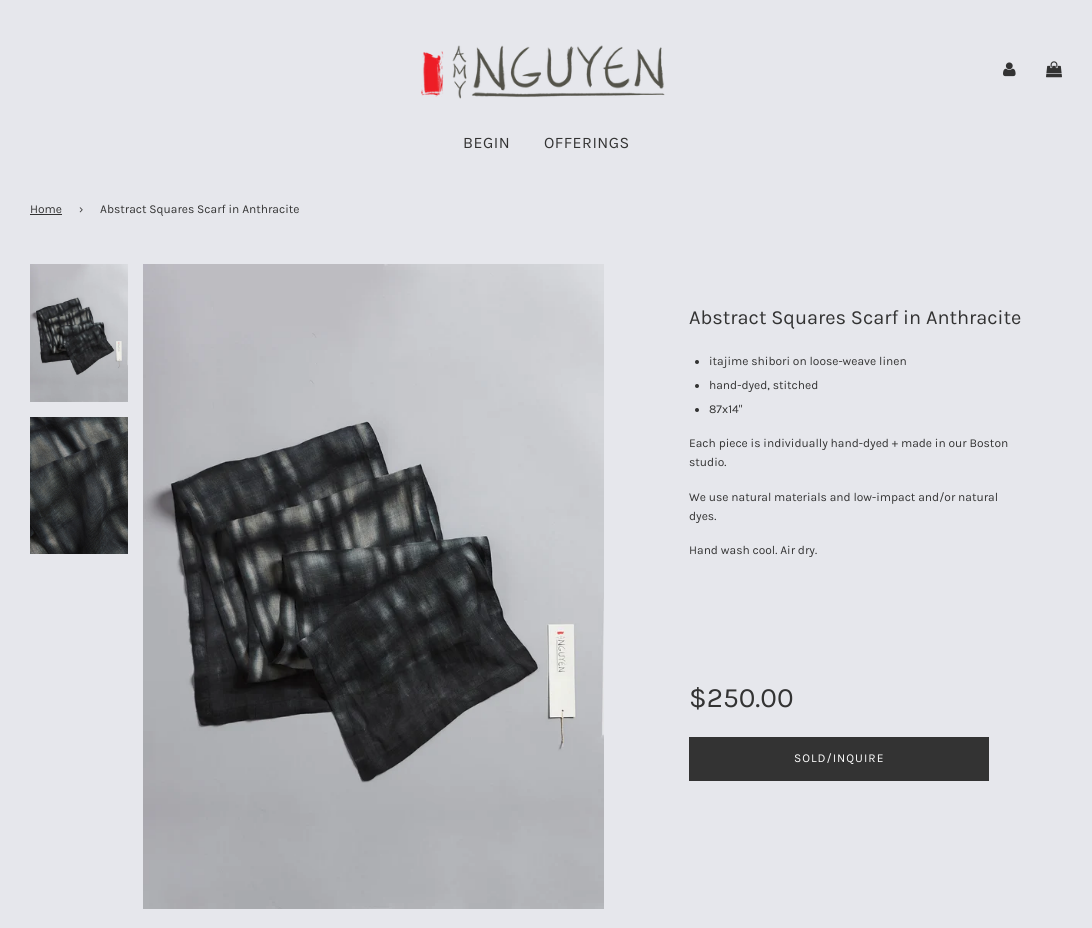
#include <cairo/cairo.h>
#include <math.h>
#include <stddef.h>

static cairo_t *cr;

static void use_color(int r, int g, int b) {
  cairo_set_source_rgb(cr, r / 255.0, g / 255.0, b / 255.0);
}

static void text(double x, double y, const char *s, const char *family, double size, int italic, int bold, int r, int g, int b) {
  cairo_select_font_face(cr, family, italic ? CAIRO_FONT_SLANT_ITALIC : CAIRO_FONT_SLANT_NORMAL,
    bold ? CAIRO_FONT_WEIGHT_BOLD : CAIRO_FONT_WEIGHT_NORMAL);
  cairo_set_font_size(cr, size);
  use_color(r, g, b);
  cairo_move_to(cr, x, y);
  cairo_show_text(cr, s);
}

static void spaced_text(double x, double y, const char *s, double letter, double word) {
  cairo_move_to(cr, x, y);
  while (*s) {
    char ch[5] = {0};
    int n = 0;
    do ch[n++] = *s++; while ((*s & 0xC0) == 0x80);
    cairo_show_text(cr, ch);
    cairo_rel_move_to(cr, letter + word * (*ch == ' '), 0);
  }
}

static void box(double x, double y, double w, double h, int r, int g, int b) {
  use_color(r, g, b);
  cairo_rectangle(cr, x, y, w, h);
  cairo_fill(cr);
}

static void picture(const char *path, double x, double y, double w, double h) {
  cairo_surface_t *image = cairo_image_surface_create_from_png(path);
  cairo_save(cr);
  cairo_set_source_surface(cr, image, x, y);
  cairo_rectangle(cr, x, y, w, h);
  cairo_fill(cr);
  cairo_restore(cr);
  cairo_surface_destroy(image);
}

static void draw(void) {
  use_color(230, 231, 236);
  cairo_paint(cr);
  picture("img_01.png", 421, 45, 244, 54);
  picture("img_02.png", 1003, 62, 13, 15);
  picture("img_03.png", 1046, 61, 16, 17);
  box(30, 214, 32, 1, 51, 51, 51);
  picture("img_04.png", 30, 264, 98, 138);
  picture("img_05.png", 30, 417, 98, 137);
  picture("img_06.png", 143, 264, 461, 645);
  cairo_arc(cr, 697, 362, 2, 0, 2 * M_PI);
  cairo_fill(cr);
  cairo_arc(cr, 697, 386, 2, 0, 2 * M_PI);
  cairo_fill(cr);
  cairo_arc(cr, 697, 410, 2, 0, 2 * M_PI);
  cairo_fill(cr);
  box(689, 737, 300, 44, 51, 51, 51);
  cairo_select_font_face(cr, "Karla", CAIRO_FONT_SLANT_NORMAL, CAIRO_FONT_WEIGHT_NORMAL);
  cairo_set_font_size(cr, 16);
  spaced_text(463, 148, "BEGIN", 0.5, 0);
  spaced_text(544, 148, "OFFERINGS", 0.5, 0);
  text(30, 213, "Home", "Karla", 12, 0, 0, 51, 51, 51);
  text(79, 213, "›", "Karla", 12, 0, 0, 51, 51, 51);
  text(100, 213, "Abstract Squares Scarf in Anthracite", "Karla", 12, 0, 0, 51, 51, 51);
  text(689, 324, "Abstract Squares Scarf in Anthracite", "Karla", 20, 0, 0, 51, 51, 51);
  text(709, 365, "itajime shibori on loose-weave linen", "Karla", 12, 0, 0, 51, 51, 51);
  text(709, 389, "hand-dyed, stitched", "Karla", 12, 0, 0, 51, 51, 51);
  text(709, 413, "87x14\"", "Karla", 12, 0, 0, 51, 51, 51);
  text(689, 447, "Each piece is individually hand-dyed + made in our Boston", "Karla", 12, 0, 0, 51, 51, 51);
  text(689, 466, "studio.", "Karla", 12, 0, 0, 51, 51, 51);
  text(689, 501, "We use natural materials and low-impact and/or natural", "Karla", 12, 0, 0, 51, 51, 51);
  text(689, 520, "dyes.", "Karla", 12, 0, 0, 51, 51, 51);
  text(689, 554, "Hand wash cool. Air dry.", "Karla", 12, 0, 0, 51, 51, 51);
  text(689, 707, "$250.00", "Karla", 28, 0, 0, 51, 51, 51);
  cairo_set_font_size(cr, 12);
  use_color(255, 255, 255);
  spaced_text(794, 762, "SOLD/INQUIRE", 1, 0);
}

int main(void) {
  cairo_surface_t *surface = cairo_image_surface_create(CAIRO_FORMAT_RGB24, 1092, 928);
  cr = cairo_create(surface);
  cairo_font_options_t *options = cairo_font_options_create();
  cairo_font_options_set_hint_metrics(options, CAIRO_HINT_METRICS_OFF);
  cairo_font_options_set_hint_style(options, CAIRO_HINT_STYLE_NONE);
  cairo_set_font_options(cr, options);
  cairo_set_miter_limit(cr, 4);
  draw();
  cairo_surface_write_to_png(surface, "out.png");
  cairo_font_options_destroy(options);
  cairo_destroy(cr);
  cairo_surface_destroy(surface);
  return 0;
}
